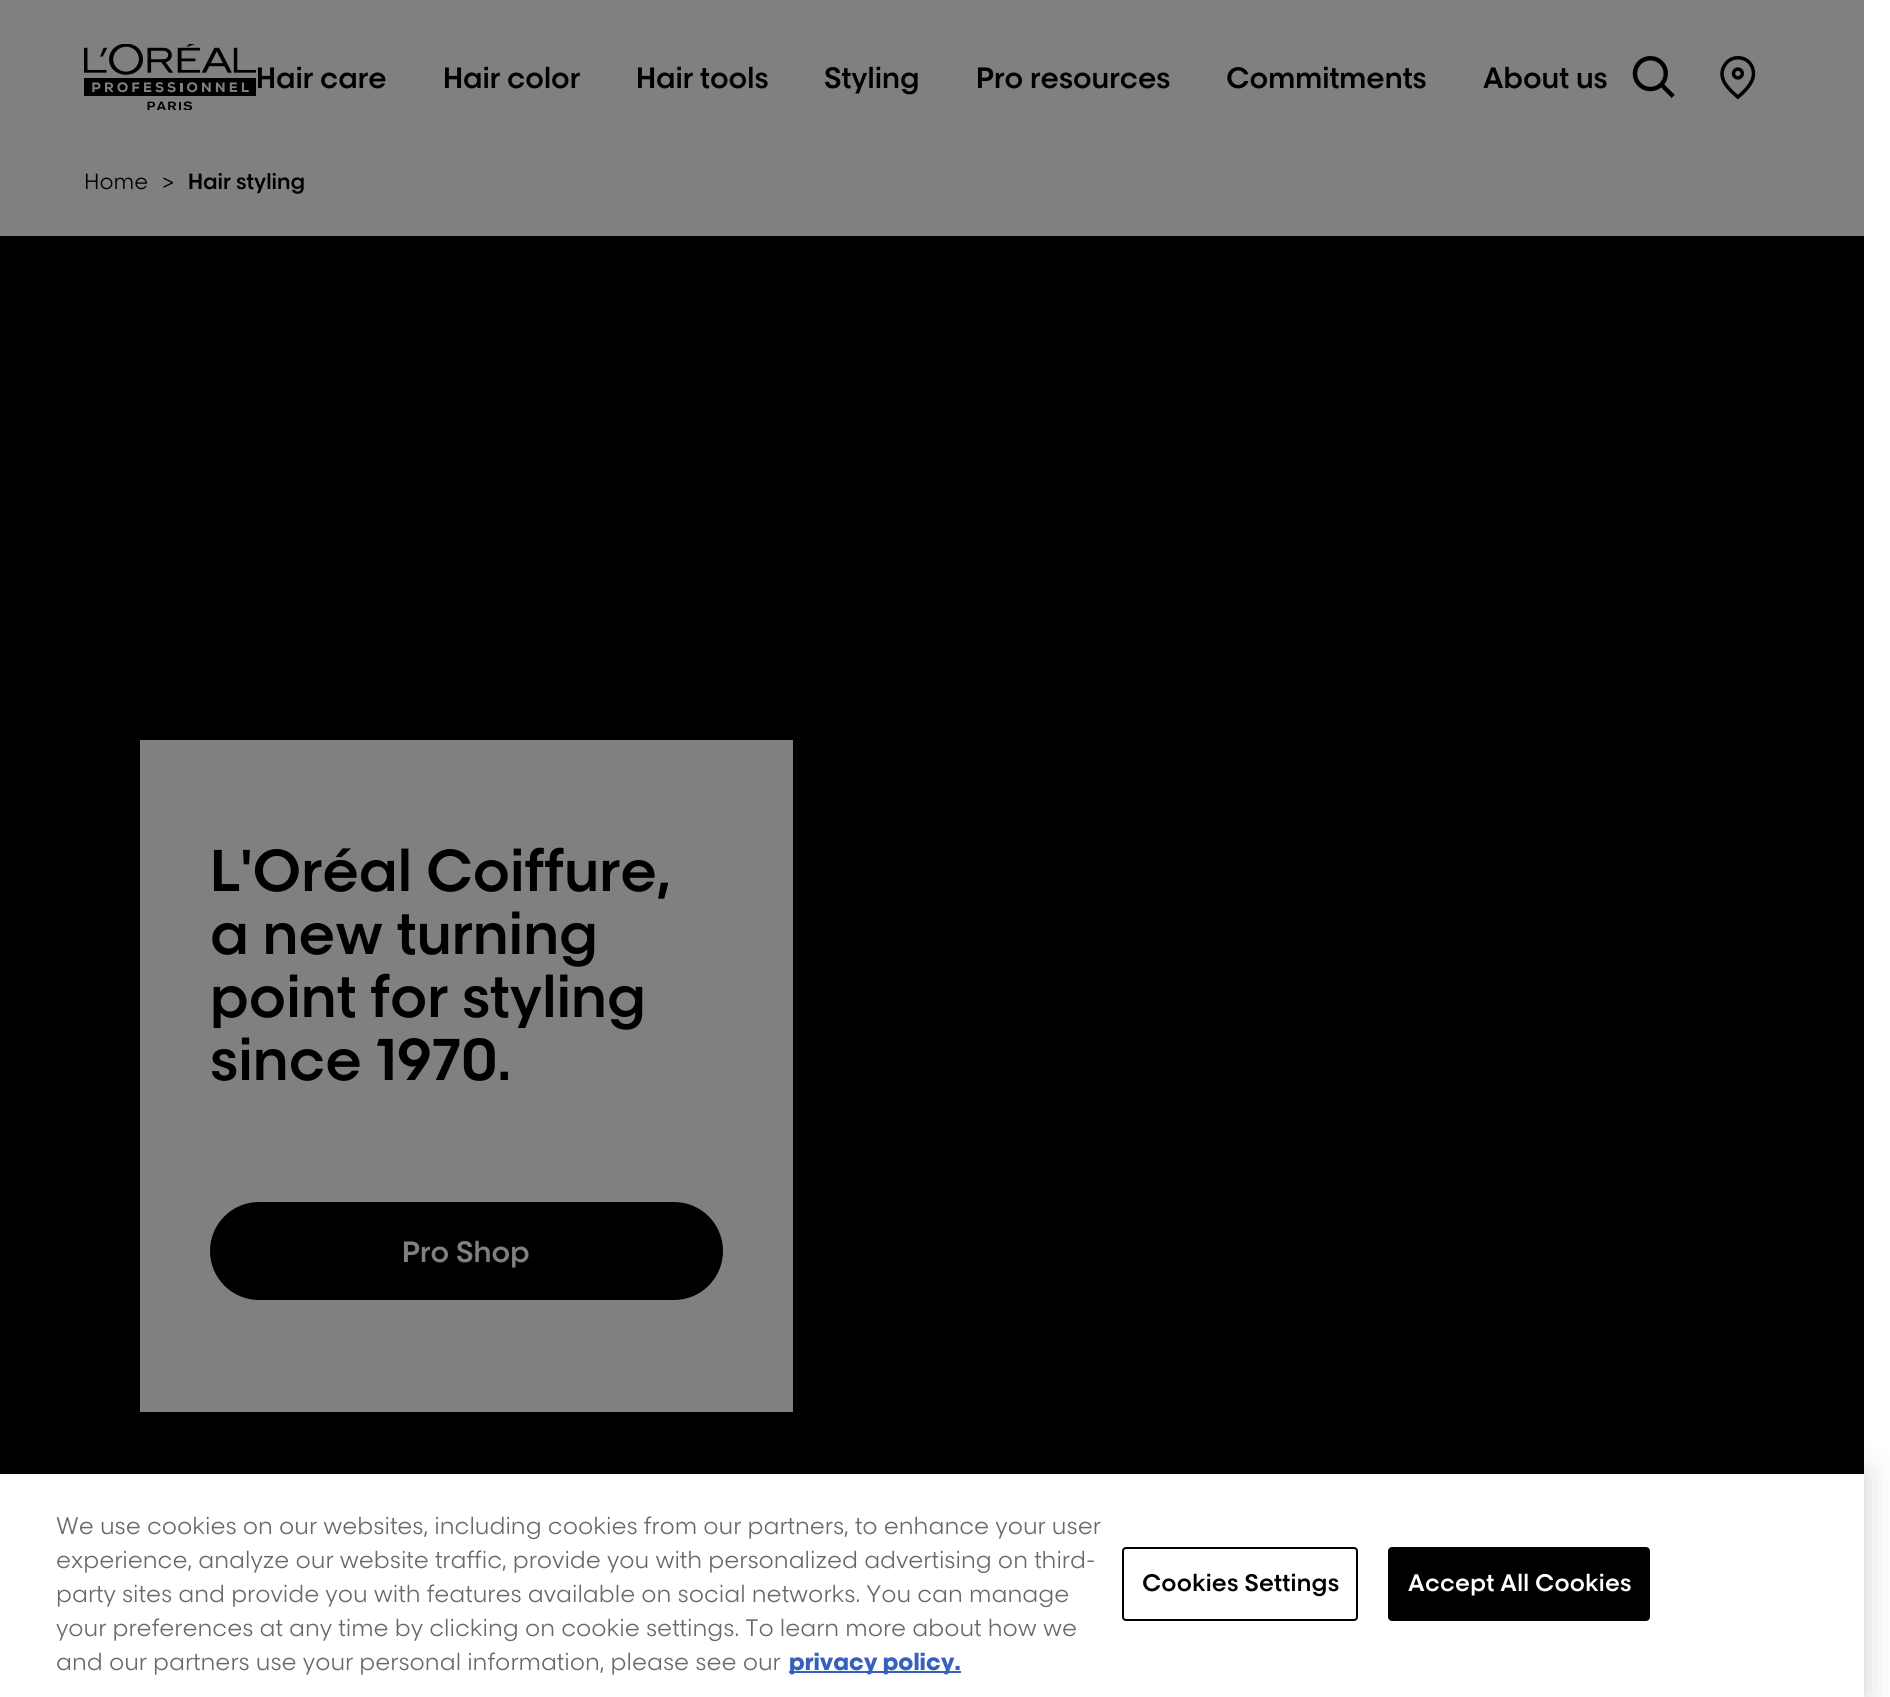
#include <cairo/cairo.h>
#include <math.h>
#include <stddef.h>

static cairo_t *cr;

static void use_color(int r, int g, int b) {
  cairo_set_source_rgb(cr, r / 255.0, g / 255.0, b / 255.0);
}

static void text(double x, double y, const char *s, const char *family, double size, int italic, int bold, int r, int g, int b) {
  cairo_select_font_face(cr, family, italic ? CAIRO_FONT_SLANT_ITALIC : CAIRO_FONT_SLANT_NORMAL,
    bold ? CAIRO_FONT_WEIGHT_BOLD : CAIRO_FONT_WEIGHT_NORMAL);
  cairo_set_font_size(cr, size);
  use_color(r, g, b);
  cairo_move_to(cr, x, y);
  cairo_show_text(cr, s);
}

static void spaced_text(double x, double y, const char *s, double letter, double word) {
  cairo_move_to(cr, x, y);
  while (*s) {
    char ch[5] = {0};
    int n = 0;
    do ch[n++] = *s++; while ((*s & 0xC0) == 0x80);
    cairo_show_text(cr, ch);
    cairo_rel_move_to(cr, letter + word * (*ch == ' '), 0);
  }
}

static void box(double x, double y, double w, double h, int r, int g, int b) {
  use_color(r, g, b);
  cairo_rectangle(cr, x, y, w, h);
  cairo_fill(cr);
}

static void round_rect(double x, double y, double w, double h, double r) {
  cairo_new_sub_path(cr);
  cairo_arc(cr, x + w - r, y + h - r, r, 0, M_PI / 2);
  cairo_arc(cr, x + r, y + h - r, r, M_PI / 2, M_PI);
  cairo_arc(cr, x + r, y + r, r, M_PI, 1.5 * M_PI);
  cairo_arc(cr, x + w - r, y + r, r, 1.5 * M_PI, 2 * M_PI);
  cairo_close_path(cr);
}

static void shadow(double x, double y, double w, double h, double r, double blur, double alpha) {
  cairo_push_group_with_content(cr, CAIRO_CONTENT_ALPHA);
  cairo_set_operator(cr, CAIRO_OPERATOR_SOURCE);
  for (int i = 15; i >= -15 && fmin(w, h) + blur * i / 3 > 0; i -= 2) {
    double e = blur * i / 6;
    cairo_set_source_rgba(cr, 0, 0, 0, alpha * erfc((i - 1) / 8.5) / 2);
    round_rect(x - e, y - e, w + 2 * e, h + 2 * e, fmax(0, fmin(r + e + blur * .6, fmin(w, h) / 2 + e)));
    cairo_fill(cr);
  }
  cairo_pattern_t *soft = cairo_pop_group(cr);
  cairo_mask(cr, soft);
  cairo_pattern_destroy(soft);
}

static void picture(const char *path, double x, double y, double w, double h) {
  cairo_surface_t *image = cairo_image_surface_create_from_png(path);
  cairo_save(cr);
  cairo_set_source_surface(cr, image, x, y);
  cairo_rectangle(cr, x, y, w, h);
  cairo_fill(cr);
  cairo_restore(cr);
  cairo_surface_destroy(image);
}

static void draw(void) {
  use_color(255, 255, 255);
  cairo_paint(cr);
  box(0, 0, 1864, 236, 128, 128, 128);
  picture("img_01.png", 84, 44, 172, 66);
  picture("img_02.png", 1632, 56, 43, 42);
  picture("img_03.png", 1720, 56, 36, 44);
  box(0, 236, 1864, 1238, 0, 0, 0);
  box(140, 740, 653, 672, 128, 128, 128);
  use_color(0, 0, 0);
  round_rect(210, 1202, 513, 98, 49);
  cairo_fill(cr);
  use_color(0, 0, 0);
  shadow(0, 1474, 1864, 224, 0, 16, 0.2);
  box(0, 1474, 1864, 223, 255, 255, 255);
  box(789, 1671, 172, 2, 56, 96, 190);
  round_rect(1123, 1548, 234, 72, 3);
  use_color(0, 0, 0);
  cairo_stroke(cr);
  round_rect(1389, 1548, 260, 72, 3);
  cairo_fill_preserve(cr);
  cairo_stroke(cr);
  text(256, 88, "Hair care", "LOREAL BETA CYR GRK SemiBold", 28, 0, 0, 0, 0, 0);
  text(443, 88, "Hair color", "LOREAL BETA CYR GRK SemiBold", 28, 0, 0, 0, 0, 0);
  text(636, 88, "Hair tools", "LOREAL BETA CYR GRK SemiBold", 28, 0, 0, 0, 0, 0);
  text(824, 88, "Styling", "LOREAL BETA CYR GRK SemiBold", 28, 0, 0, 0, 0, 0);
  text(976, 88, "Pro resources", "LOREAL BETA CYR GRK SemiBold", 28, 0, 0, 0, 0, 0);
  text(1226, 88, "Commitments", "LOREAL BETA CYR GRK SemiBold", 28, 0, 0, 0, 0, 0);
  text(1483, 88, "About us", "LOREAL BETA CYR GRK SemiBold", 28, 0, 0, 0, 0, 0);
  text(84, 189, "Home", "LOREAL BETA CYR GRK", 21, 0, 0, 0, 0, 0);
  text(162, 189, ">", "LOREAL BETA CYR GRK", 21, 0, 0, 0, 0, 0);
  text(188, 189, "Hair styling", "LOREAL BETA CYR GRK SemiBold", 21, 0, 0, 0, 0, 0);
  text(210, 891, "L'Oréal Coiffure,", "LOREAL BETA CYR GRK SemiBold", 56, 0, 0, 0, 0, 0);
  text(210, 954, "a new turning", "LOREAL BETA CYR GRK SemiBold", 56, 0, 0, 0, 0, 0);
  text(210, 1017, "point for styling", "LOREAL BETA CYR GRK SemiBold", 56, 0, 0, 0, 0, 0);
  text(210, 1080, "since 1970.", "LOREAL BETA CYR GRK SemiBold", 56, 0, 0, 0, 0, 0);
  text(402, 1262, "Pro Shop", "LOREAL BETA CYR GRK SemiBold", 28, 0, 0, 128, 128, 128);
  text(56, 1534, "We use cookies on our websites, including cookies from our partners, to enhance your user", "LOREAL BETA CYR GRK", 22.75, 0, 0, 105, 105, 105);
  text(56, 1568, "experience, analyze our website traffic, provide you with personalized advertising on third-", "LOREAL BETA CYR GRK", 22.75, 0, 0, 105, 105, 105);
  text(56, 1602, "party sites and provide you with features available on social networks. You can manage", "LOREAL BETA CYR GRK", 22.75, 0, 0, 105, 105, 105);
  text(56, 1636, "your preferences at any time by clicking on cookie settings. To learn more about how we", "LOREAL BETA CYR GRK", 22.75, 0, 0, 105, 105, 105);
  text(56, 1670, "and our partners use your personal information, please see our", "LOREAL BETA CYR GRK", 22.75, 0, 0, 105, 105, 105);
  text(789, 1670, "privacy policy.", "LOREAL BETA CYR GRK", 22.75, 0, 1, 56, 96, 190);
  cairo_select_font_face(cr, "LOREAL BETA CYR GRK SemiBold", CAIRO_FONT_SLANT_NORMAL, CAIRO_FONT_WEIGHT_NORMAL);
  use_color(0, 0, 0);
  spaced_text(1142, 1591, "Cookies Settings", 0.25, 0);
  use_color(255, 255, 255);
  spaced_text(1408, 1591, "Accept All Cookies", 0.25, 0);
}

int main(void) {
  cairo_surface_t *surface = cairo_image_surface_create(CAIRO_FORMAT_RGB24, 1890, 1697);
  cr = cairo_create(surface);
  cairo_font_options_t *options = cairo_font_options_create();
  cairo_font_options_set_hint_metrics(options, CAIRO_HINT_METRICS_OFF);
  cairo_font_options_set_hint_style(options, CAIRO_HINT_STYLE_NONE);
  cairo_set_font_options(cr, options);
  cairo_set_miter_limit(cr, 4);
  draw();
  cairo_surface_write_to_png(surface, "out.png");
  cairo_font_options_destroy(options);
  cairo_destroy(cr);
  cairo_surface_destroy(surface);
  return 0;
}
